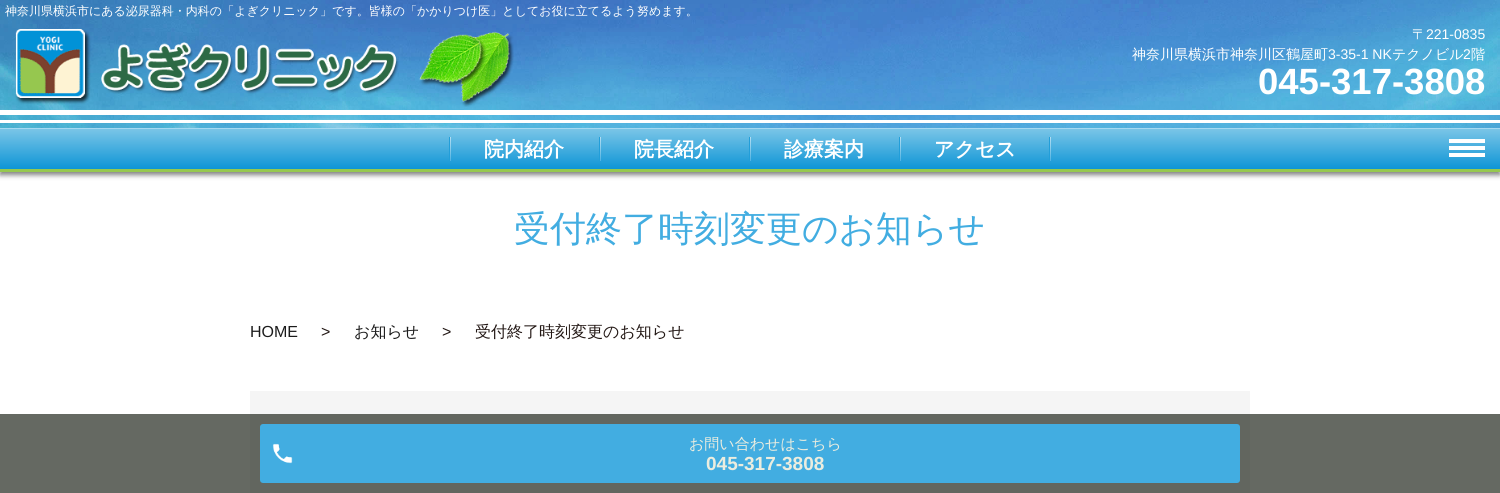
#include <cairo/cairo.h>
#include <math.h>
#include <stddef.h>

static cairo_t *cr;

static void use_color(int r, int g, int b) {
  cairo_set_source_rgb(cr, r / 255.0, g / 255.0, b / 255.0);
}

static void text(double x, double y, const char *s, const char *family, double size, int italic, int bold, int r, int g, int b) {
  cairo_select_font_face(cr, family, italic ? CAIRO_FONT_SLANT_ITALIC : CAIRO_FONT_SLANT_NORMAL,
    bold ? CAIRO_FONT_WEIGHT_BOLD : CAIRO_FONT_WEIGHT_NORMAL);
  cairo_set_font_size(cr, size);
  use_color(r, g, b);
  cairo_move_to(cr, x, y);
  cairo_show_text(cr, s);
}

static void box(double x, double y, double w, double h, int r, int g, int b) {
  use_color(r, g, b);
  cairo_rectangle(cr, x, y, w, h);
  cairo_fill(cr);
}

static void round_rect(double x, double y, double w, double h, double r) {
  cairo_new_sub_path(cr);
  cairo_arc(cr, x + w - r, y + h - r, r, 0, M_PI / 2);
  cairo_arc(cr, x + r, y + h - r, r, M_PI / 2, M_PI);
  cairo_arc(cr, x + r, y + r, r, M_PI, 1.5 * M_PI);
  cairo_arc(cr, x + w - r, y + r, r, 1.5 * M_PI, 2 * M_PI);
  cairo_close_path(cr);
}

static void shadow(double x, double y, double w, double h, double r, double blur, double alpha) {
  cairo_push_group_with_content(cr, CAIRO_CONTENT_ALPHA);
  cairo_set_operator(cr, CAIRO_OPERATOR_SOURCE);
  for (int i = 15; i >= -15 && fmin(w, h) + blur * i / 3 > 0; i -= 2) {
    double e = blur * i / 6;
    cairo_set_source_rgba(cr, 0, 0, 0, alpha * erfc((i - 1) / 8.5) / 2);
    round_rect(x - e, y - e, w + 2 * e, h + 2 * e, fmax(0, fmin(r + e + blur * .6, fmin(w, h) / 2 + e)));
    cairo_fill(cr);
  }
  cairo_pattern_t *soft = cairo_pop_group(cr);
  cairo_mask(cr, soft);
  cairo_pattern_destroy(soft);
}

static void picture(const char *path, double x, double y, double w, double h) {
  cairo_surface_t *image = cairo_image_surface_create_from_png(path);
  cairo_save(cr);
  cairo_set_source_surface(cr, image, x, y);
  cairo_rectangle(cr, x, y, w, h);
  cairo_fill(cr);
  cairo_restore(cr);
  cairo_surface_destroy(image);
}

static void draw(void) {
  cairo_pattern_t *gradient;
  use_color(255, 255, 255);
  cairo_paint(cr);
  box(0, 414, 1500, 79, 101, 105, 98);
  use_color(0, 0, 0);
  shadow(0, 3, 1500, 172, 0, 2.5, 0.5);
  picture("img_01.png", 0, 0, 1500, 128);
  box(0, 120, 1500, 3, 255, 255, 255);
  box(0, 110, 1500, 5, 255, 255, 255);
  picture("img_02.png", 15, 29, 499, 78);
  gradient = cairo_pattern_create_linear(750, 129, 750, 169);
  cairo_pattern_add_color_stop_rgba(gradient, 0, 0.478, 0.773, 0.906, 1);
  cairo_pattern_add_color_stop_rgba(gradient, 1, 0.055, 0.584, 0.839, 1);
  cairo_set_source(cr, gradient);
  cairo_pattern_destroy(gradient);
  cairo_rectangle(cr, 0, 129, 1500, 40);
  cairo_fill(cr);
  box(0, 128, 1500, 1, 165, 217, 241);
  box(0, 169, 1500, 3, 150, 200, 79);
  gradient = cairo_pattern_create_linear(451, 137, 451, 161);
  cairo_pattern_add_color_stop_rgba(gradient, 0, 1, 1, 1, 0.5);
  cairo_pattern_add_color_stop_rgba(gradient, 1, 1, 1, 1, 0.2);
  cairo_set_source(cr, gradient);
  cairo_pattern_destroy(gradient);
  cairo_rectangle(cr, 450, 137, 1, 24);
  cairo_fill(cr);
  box(449, 137, 1, 24, 34, 158, 217);
  gradient = cairo_pattern_create_linear(601, 137, 601, 161);
  cairo_pattern_add_color_stop_rgba(gradient, 0, 1, 1, 1, 0.5);
  cairo_pattern_add_color_stop_rgba(gradient, 1, 1, 1, 1, 0.2);
  cairo_set_source(cr, gradient);
  cairo_pattern_destroy(gradient);
  cairo_rectangle(cr, 600, 137, 1, 24);
  cairo_fill(cr);
  box(599, 137, 1, 24, 34, 158, 217);
  gradient = cairo_pattern_create_linear(751, 137, 751, 161);
  cairo_pattern_add_color_stop_rgba(gradient, 0, 1, 1, 1, 0.5);
  cairo_pattern_add_color_stop_rgba(gradient, 1, 1, 1, 1, 0.2);
  cairo_set_source(cr, gradient);
  cairo_pattern_destroy(gradient);
  cairo_rectangle(cr, 750, 137, 1, 24);
  cairo_fill(cr);
  box(749, 137, 1, 24, 34, 158, 217);
  gradient = cairo_pattern_create_linear(901, 137, 901, 161);
  cairo_pattern_add_color_stop_rgba(gradient, 0, 1, 1, 1, 0.5);
  cairo_pattern_add_color_stop_rgba(gradient, 1, 1, 1, 1, 0.2);
  cairo_set_source(cr, gradient);
  cairo_pattern_destroy(gradient);
  cairo_rectangle(cr, 900, 137, 1, 24);
  cairo_fill(cr);
  box(899, 137, 1, 24, 34, 158, 217);
  gradient = cairo_pattern_create_linear(1051, 137, 1051, 161);
  cairo_pattern_add_color_stop_rgba(gradient, 0, 1, 1, 1, 0.5);
  cairo_pattern_add_color_stop_rgba(gradient, 1, 1, 1, 1, 0.2);
  cairo_set_source(cr, gradient);
  cairo_pattern_destroy(gradient);
  cairo_rectangle(cr, 1050, 137, 1, 24);
  cairo_fill(cr);
  box(1049, 137, 1, 24, 34, 158, 217);
  box(1449, 139, 36, 4, 255, 255, 255);
  box(1449, 153, 36, 4, 255, 255, 255);
  box(1449, 146, 36, 4, 255, 255, 255);
  box(250, 391, 1000, 23, 245, 245, 245);
  box(250, 414, 1000, 79, 98, 102, 95);
  use_color(66, 173, 225);
  round_rect(260, 424, 980, 59, 3);
  cairo_fill(cr);
  picture("img_03.png", 272, 443, 21, 21);
  text(5, 15, "神奈川県横浜市にある泌尿器科・内科の「よぎクリニック」です。皆様の「かかりつけ医」としてお役に立てるよう努めます。", "WenQuanYi Zen Hei Medium", 12, 0, 0, 255, 255, 255);
  text(1412, 39, "〒", "WenQuanYi Zen Hei Medium", 14, 0, 0, 255, 255, 255);
  text(1426, 39, "221-0835", "Liberation Sans", 14, 0, 0, 255, 255, 255);
  text(1132, 59, "神奈川県横浜市神奈川区鶴屋町", "WenQuanYi Zen Hei Medium", 14, 0, 0, 255, 255, 255);
  text(1328, 59, "3-35-1 NK", "Liberation Sans", 14, 0, 0, 255, 255, 255);
  text(1392, 59, "テクノビル", "WenQuanYi Zen Hei Medium", 14, 0, 0, 255, 255, 255);
  text(1463, 59, "2", "Liberation Sans", 14, 0, 0, 255, 255, 255);
  text(1471, 59, "階", "WenQuanYi Zen Hei Medium", 14, 0, 0, 255, 255, 255);
  text(1258, 94, "045-317-3808", "Liberation Sans", 36.5, 0, 1, 255, 255, 255);
  text(484, 156, "院内紹介", "WenQuanYi Zen Hei", 20, 0, 1, 255, 255, 255);
  text(634, 156, "院長紹介", "WenQuanYi Zen Hei", 20, 0, 1, 255, 255, 255);
  text(784, 156, "診療案内", "WenQuanYi Zen Hei", 20, 0, 1, 255, 255, 255);
  text(934, 156, "アクセス", "WenQuanYi Zen Hei", 20, 0, 1, 255, 255, 255);
  text(514, 241, "受付終了時刻変更のお知らせ", "WenQuanYi Zen Hei Medium", 36, 0, 0, 66, 173, 225);
  text(250, 337, "HOME", "Liberation Sans", 16, 0, 0, 27, 27, 27);
  text(321, 337, ">", "Liberation Sans", 16, 0, 0, 35, 24, 21);
  text(354, 337, "お知らせ", "WenQuanYi Zen Hei Medium", 16, 0, 0, 27, 27, 27);
  text(442, 337, ">", "Liberation Sans", 16, 0, 0, 35, 24, 21);
  text(475, 337, "受付終了時刻変更のお知らせ", "WenQuanYi Zen Hei Medium", 16, 0, 0, 35, 24, 21);
  text(689, 449, "お問い合わせはこちら", "WenQuanYi Zen Hei Medium", 15, 0, 0, 235, 237, 223);
  text(706, 470, "045-317-3808", "Liberation Sans", 19, 0, 1, 235, 237, 223);
}

int main(void) {
  cairo_surface_t *surface = cairo_image_surface_create(CAIRO_FORMAT_RGB24, 1500, 493);
  cr = cairo_create(surface);
  cairo_font_options_t *options = cairo_font_options_create();
  cairo_font_options_set_hint_metrics(options, CAIRO_HINT_METRICS_OFF);
  cairo_font_options_set_hint_style(options, CAIRO_HINT_STYLE_NONE);
  cairo_set_font_options(cr, options);
  cairo_set_miter_limit(cr, 4);
  draw();
  cairo_surface_write_to_png(surface, "out.png");
  cairo_font_options_destroy(options);
  cairo_destroy(cr);
  cairo_surface_destroy(surface);
  return 0;
}
